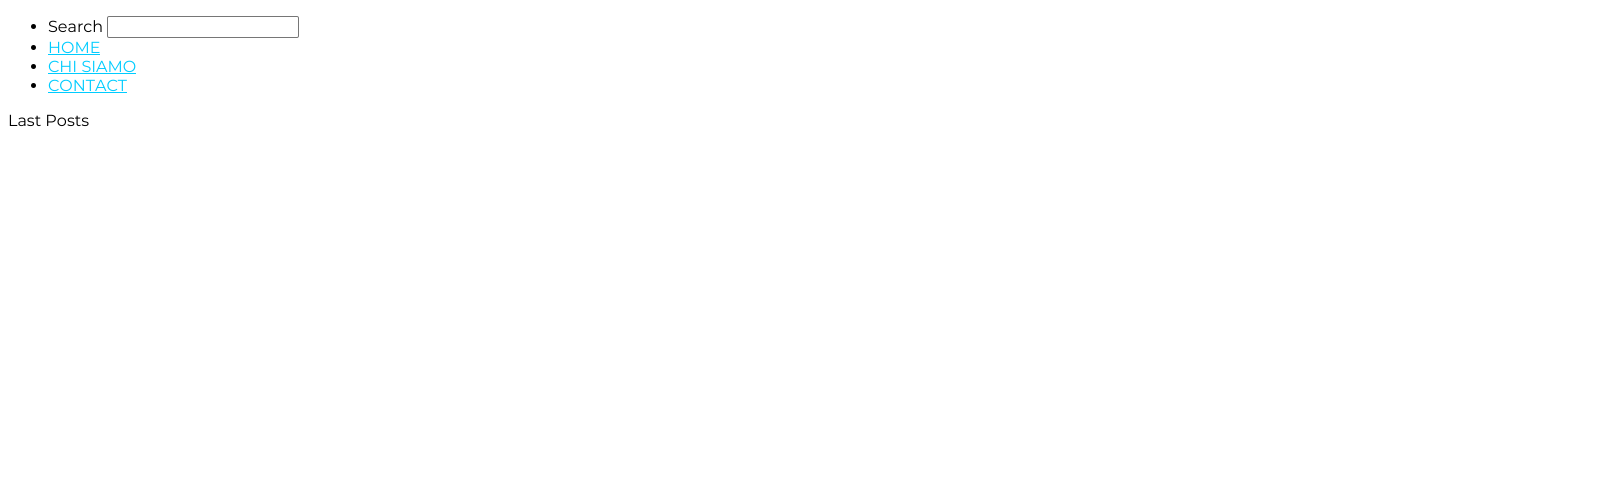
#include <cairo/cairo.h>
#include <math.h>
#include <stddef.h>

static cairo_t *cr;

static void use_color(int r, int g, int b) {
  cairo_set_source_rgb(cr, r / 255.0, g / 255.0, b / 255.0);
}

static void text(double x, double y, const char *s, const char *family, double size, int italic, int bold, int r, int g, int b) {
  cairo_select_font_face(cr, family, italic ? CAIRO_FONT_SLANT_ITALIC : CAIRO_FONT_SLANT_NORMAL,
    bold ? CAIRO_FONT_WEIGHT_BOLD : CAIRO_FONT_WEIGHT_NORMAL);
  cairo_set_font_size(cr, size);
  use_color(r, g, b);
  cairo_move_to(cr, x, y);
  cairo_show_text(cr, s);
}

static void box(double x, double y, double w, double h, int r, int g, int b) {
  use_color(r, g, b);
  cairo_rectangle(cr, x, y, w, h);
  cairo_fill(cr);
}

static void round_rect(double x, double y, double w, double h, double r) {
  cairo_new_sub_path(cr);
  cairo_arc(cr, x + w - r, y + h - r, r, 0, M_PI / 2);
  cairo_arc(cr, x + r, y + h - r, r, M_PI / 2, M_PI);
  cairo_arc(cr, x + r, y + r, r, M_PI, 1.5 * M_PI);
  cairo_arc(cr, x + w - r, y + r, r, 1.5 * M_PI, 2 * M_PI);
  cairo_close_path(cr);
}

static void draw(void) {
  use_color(255, 255, 255);
  cairo_paint(cr);
  use_color(0, 0, 0);
  cairo_arc(cr, 33.5, 26.5, 2.5, 0, 2 * M_PI);
  cairo_fill(cr);
  round_rect(107.5, 16.5, 191, 21, 1.5);
  use_color(118, 118, 118);
  cairo_set_line_width(cr, 1);
  cairo_stroke(cr);
  use_color(0, 0, 0);
  cairo_arc(cr, 33.5, 47.5, 2.5, 0, 2 * M_PI);
  cairo_fill(cr);
  box(48, 54, 52, 1, 0, 204, 255);
  use_color(0, 0, 0);
  cairo_arc(cr, 33.5, 66.5, 2.5, 0, 2 * M_PI);
  cairo_fill(cr);
  box(48, 73, 88, 1, 0, 204, 255);
  use_color(0, 0, 0);
  cairo_arc(cr, 33.5, 85.5, 2.5, 0, 2 * M_PI);
  cairo_fill(cr);
  box(48, 92, 79, 1, 0, 204, 255);
  text(48, 32, "Search", "Montserrat", 16, 0, 0, 0, 0, 0);
  text(48, 53, "HOME", "Montserrat", 16, 0, 0, 0, 204, 255);
  text(48, 72, "CHI SIAMO", "Montserrat", 16, 0, 0, 0, 204, 255);
  text(48, 91, "CONTACT", "Montserrat", 16, 0, 0, 0, 204, 255);
  text(8, 126, "Last Posts", "Montserrat", 16, 0, 0, 0, 0, 0);
}

int main(void) {
  cairo_surface_t *surface = cairo_image_surface_create(CAIRO_FORMAT_RGB24, 1617, 499);
  cr = cairo_create(surface);
  cairo_font_options_t *options = cairo_font_options_create();
  cairo_font_options_set_hint_metrics(options, CAIRO_HINT_METRICS_OFF);
  cairo_font_options_set_hint_style(options, CAIRO_HINT_STYLE_NONE);
  cairo_set_font_options(cr, options);
  cairo_set_miter_limit(cr, 4);
  draw();
  cairo_surface_write_to_png(surface, "out.png");
  cairo_font_options_destroy(options);
  cairo_destroy(cr);
  cairo_surface_destroy(surface);
  return 0;
}
